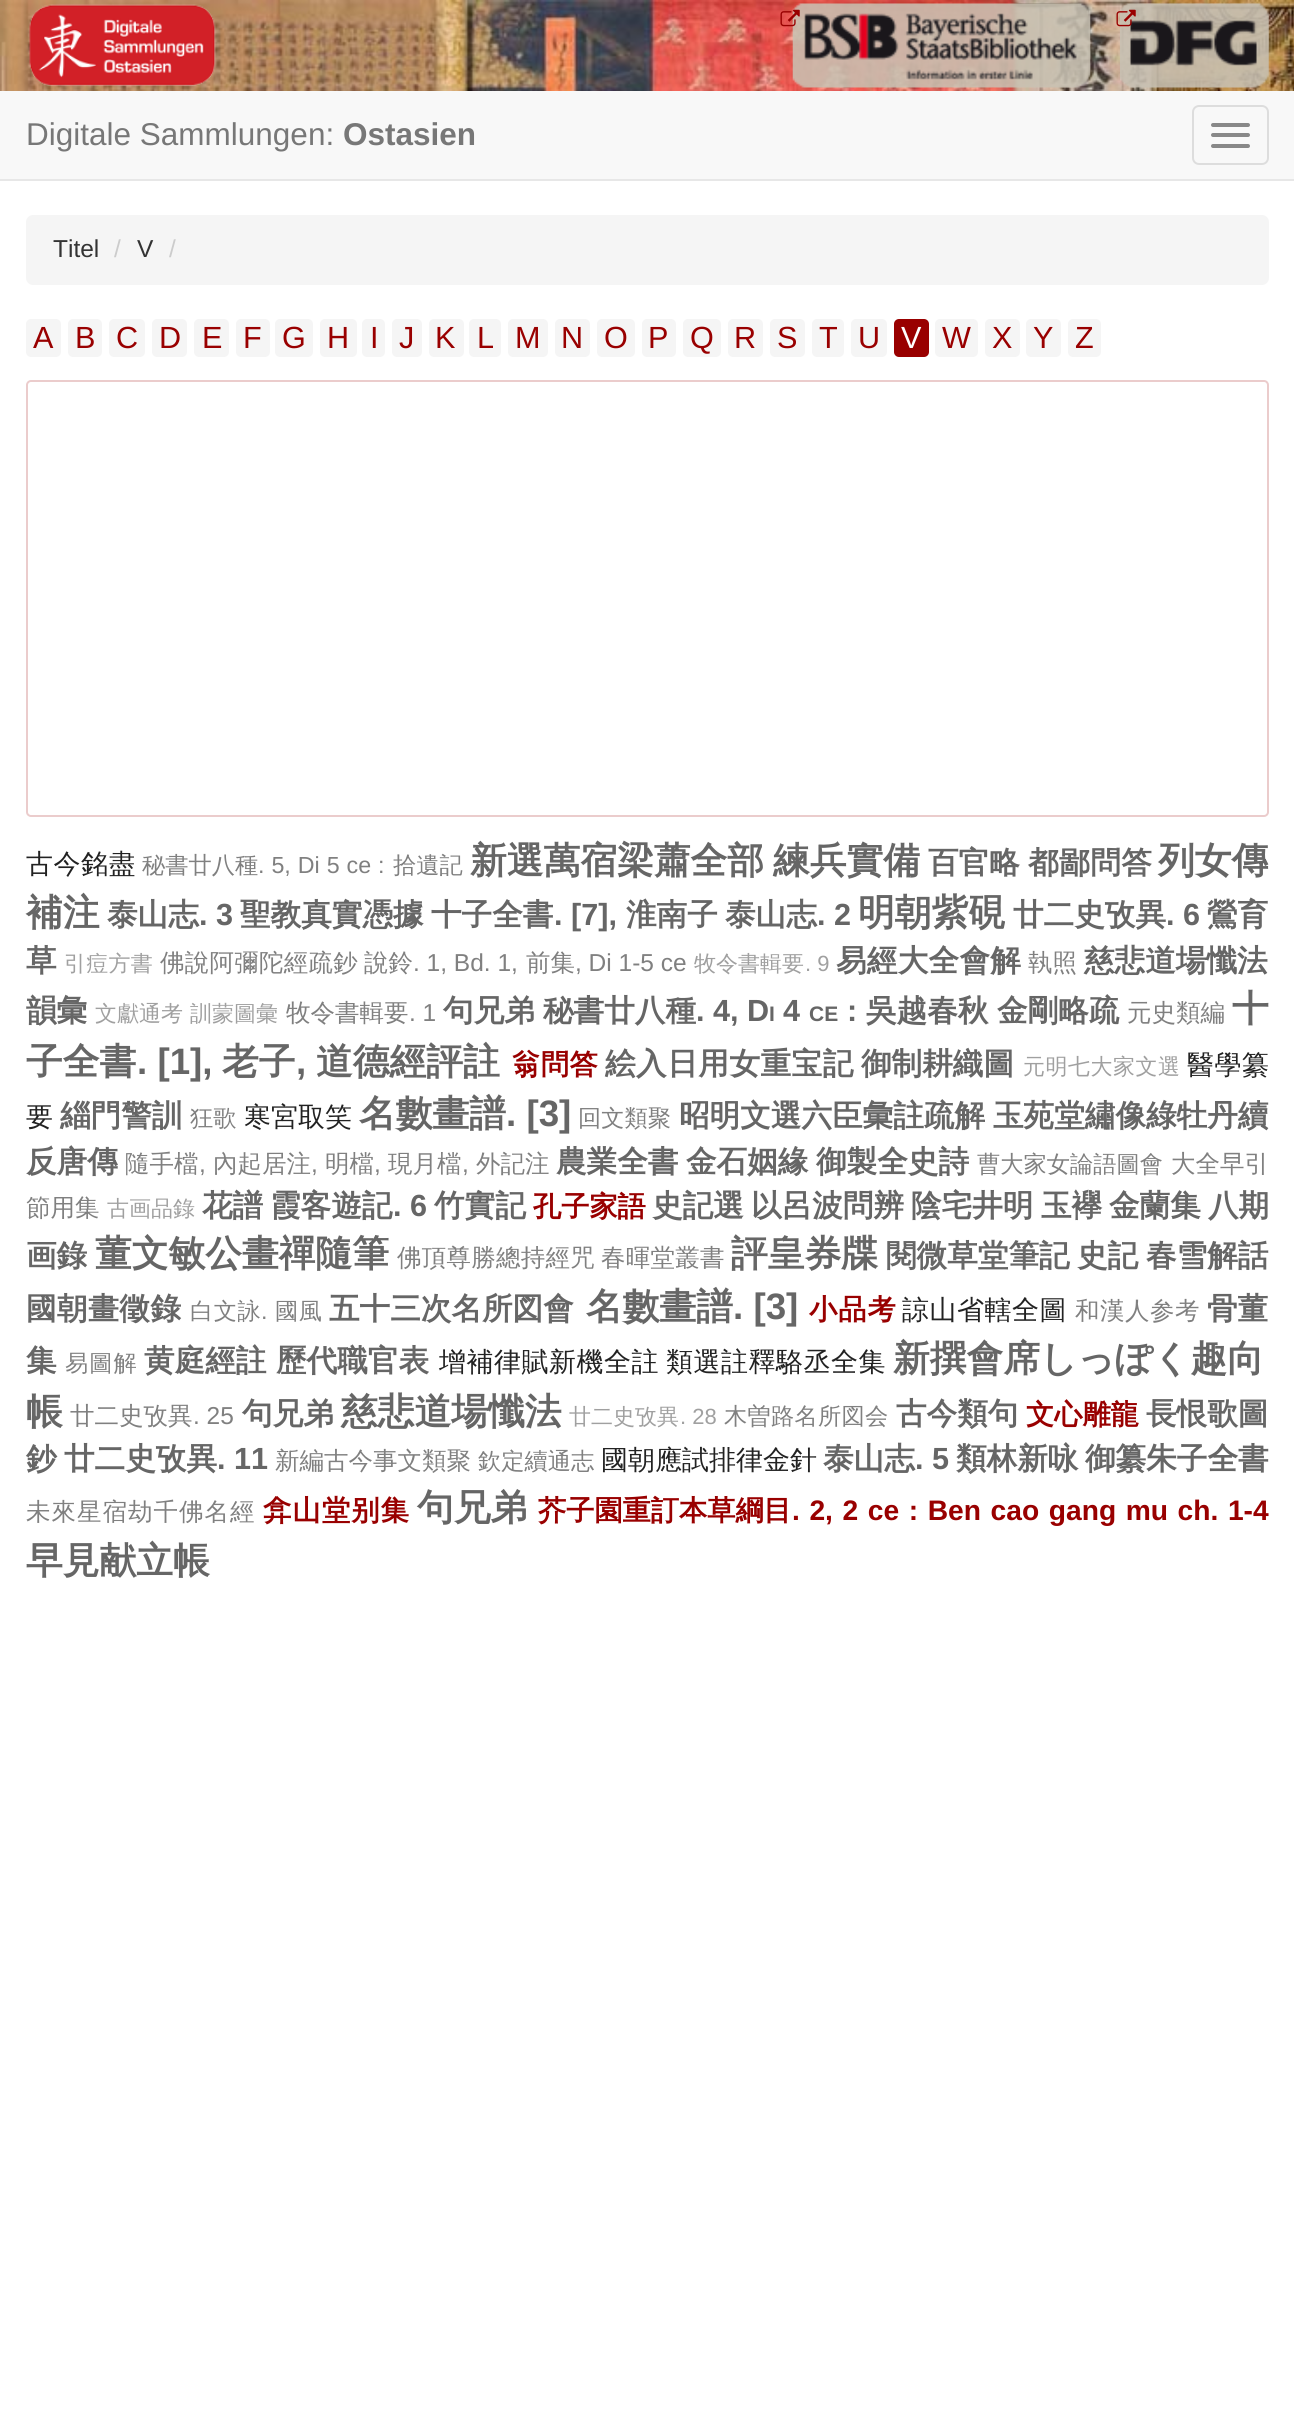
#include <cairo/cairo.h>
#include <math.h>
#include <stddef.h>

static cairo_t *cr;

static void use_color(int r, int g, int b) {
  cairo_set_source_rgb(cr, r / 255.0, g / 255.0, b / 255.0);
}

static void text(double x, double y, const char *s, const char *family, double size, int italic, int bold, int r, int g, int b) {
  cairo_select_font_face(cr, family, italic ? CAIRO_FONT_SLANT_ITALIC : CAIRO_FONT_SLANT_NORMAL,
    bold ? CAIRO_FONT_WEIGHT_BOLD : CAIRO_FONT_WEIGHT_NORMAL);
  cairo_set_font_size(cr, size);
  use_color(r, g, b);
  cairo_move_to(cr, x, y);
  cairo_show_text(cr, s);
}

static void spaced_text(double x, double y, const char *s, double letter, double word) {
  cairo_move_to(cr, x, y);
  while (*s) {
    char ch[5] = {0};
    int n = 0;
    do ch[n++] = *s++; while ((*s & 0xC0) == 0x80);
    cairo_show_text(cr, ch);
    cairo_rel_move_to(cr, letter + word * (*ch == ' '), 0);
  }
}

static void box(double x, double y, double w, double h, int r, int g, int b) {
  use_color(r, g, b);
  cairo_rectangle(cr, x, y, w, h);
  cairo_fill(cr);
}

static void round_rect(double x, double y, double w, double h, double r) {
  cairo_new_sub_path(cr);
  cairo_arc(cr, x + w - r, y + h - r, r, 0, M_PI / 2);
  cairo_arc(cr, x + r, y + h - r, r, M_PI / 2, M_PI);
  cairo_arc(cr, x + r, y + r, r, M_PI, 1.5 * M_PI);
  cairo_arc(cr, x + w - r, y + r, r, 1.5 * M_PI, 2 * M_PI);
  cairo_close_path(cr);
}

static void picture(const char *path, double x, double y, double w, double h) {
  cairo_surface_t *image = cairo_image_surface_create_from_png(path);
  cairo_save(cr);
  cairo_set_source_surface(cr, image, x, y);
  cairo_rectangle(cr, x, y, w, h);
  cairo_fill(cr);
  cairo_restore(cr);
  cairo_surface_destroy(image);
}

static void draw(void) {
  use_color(255, 255, 255);
  cairo_paint(cr);
  picture("img_01.png", 0, 0, 1294, 91);
  picture("img_02.png", 29, 4, 187, 82);
  picture("img_03.png", 792, 3, 299, 85);
  picture("img_04.png", 780, 9, 20, 18);
  picture("img_05.png", 1120, 3, 149, 85);
  picture("img_06.png", 1116, 9, 20, 18);
  box(0, 91, 1294, 88, 248, 248, 248);
  box(0, 179, 1294, 2, 231, 231, 231);
  round_rect(1193, 106, 75, 58, 6);
  use_color(221, 221, 221);
  cairo_stroke(cr);
  use_color(136, 136, 136);
  round_rect(1211, 123, 39, 4, 2);
  cairo_fill(cr);
  round_rect(1211, 133, 39, 4, 2);
  cairo_fill(cr);
  round_rect(1211, 144, 39, 4, 2);
  cairo_fill(cr);
  use_color(245, 245, 245);
  round_rect(26, 215, 1243, 70, 7);
  cairo_fill(cr);
  round_rect(26, 319, 35, 38, 5);
  cairo_fill(cr);
  round_rect(68, 319, 34, 38, 5);
  cairo_fill(cr);
  round_rect(109, 319, 36, 38, 5);
  cairo_fill(cr);
  round_rect(152, 319, 35, 38, 5);
  cairo_fill(cr);
  round_rect(194, 319, 35, 38, 5);
  cairo_fill(cr);
  round_rect(236, 319, 34, 38, 5);
  cairo_fill(cr);
  round_rect(275, 319, 38, 38, 5);
  cairo_fill(cr);
  round_rect(320, 319, 37, 38, 5);
  cairo_fill(cr);
  round_rect(362, 319, 23, 38, 5);
  cairo_fill(cr);
  round_rect(392, 319, 30, 38, 5);
  cairo_fill(cr);
  round_rect(429, 319, 35, 38, 5);
  cairo_fill(cr);
  round_rect(469, 319, 32, 38, 5);
  cairo_fill(cr);
  round_rect(508, 319, 40, 38, 5);
  cairo_fill(cr);
  round_rect(555, 319, 35, 38, 5);
  cairo_fill(cr);
  round_rect(597, 319, 38, 38, 5);
  cairo_fill(cr);
  round_rect(642, 319, 34, 38, 5);
  cairo_fill(cr);
  round_rect(683, 319, 38, 38, 5);
  cairo_fill(cr);
  round_rect(728, 319, 35, 38, 5);
  cairo_fill(cr);
  round_rect(770, 319, 35, 38, 5);
  cairo_fill(cr);
  round_rect(812, 319, 32, 38, 5);
  cairo_fill(cr);
  round_rect(851, 319, 36, 38, 5);
  cairo_fill(cr);
  use_color(153, 0, 0);
  round_rect(894, 319, 35, 38, 5);
  cairo_fill(cr);
  use_color(245, 245, 245);
  round_rect(935, 319, 43, 38, 5);
  cairo_fill(cr);
  round_rect(985, 319, 35, 38, 5);
  cairo_fill(cr);
  round_rect(1026, 319, 35, 38, 5);
  cairo_fill(cr);
  round_rect(1068, 319, 33, 38, 5);
  cairo_fill(cr);
  round_rect(27, 381, 1241, 435, 4);
  use_color(235, 204, 204);
  cairo_stroke(cr);
  text(26, 145, "Digitale Sammlungen:", "Liberation Sans", 31.5, 0, 0, 119, 119, 119);
  text(343, 145, "Ostasien", "Liberation Sans", 31.5, 0, 1, 119, 119, 119);
  text(53, 257, "Titel", "Liberation Sans", 24.5, 0, 0, 51, 51, 51);
  text(114, 257, "/", "Liberation Sans", 24.5, 0, 0, 204, 204, 204);
  text(137, 257, "V", "Liberation Sans", 24.5, 0, 0, 51, 51, 51);
  text(169, 257, "/", "Liberation Sans", 24.5, 0, 0, 204, 204, 204);
  text(33, 348, "A", "Liberation Sans", 30.6, 0, 0, 153, 0, 0);
  text(75, 348, "B", "Liberation Sans", 30.6, 0, 0, 153, 0, 0);
  text(116, 348, "C", "Liberation Sans", 30.6, 0, 0, 153, 0, 0);
  text(159, 348, "D", "Liberation Sans", 30.6, 0, 0, 153, 0, 0);
  text(202, 348, "E", "Liberation Sans", 30.6, 0, 0, 153, 0, 0);
  text(243, 348, "F", "Liberation Sans", 30.6, 0, 0, 153, 0, 0);
  text(282, 348, "G", "Liberation Sans", 30.6, 0, 0, 153, 0, 0);
  text(327, 348, "H", "Liberation Sans", 30.6, 0, 0, 153, 0, 0);
  text(370, 348, "I", "Liberation Sans", 30.6, 0, 0, 153, 0, 0);
  text(399, 348, "J", "Liberation Sans", 30.6, 0, 0, 153, 0, 0);
  text(435, 348, "K", "Liberation Sans", 30.6, 0, 0, 153, 0, 0);
  text(477, 348, "L", "Liberation Sans", 30.6, 0, 0, 153, 0, 0);
  text(515, 348, "M", "Liberation Sans", 30.6, 0, 0, 153, 0, 0);
  text(561, 348, "N", "Liberation Sans", 30.6, 0, 0, 153, 0, 0);
  text(604, 348, "O", "Liberation Sans", 30.6, 0, 0, 153, 0, 0);
  text(648, 348, "P", "Liberation Sans", 30.6, 0, 0, 153, 0, 0);
  text(690, 348, "Q", "Liberation Sans", 30.6, 0, 0, 153, 0, 0);
  text(734, 348, "R", "Liberation Sans", 30.6, 0, 0, 153, 0, 0);
  text(777, 348, "S", "Liberation Sans", 30.6, 0, 0, 153, 0, 0);
  text(819, 348, "T", "Liberation Sans", 30.6, 0, 0, 153, 0, 0);
  text(858, 348, "U", "Liberation Sans", 30.6, 0, 0, 153, 0, 0);
  text(901, 348, "V", "Liberation Sans", 30.6, 0, 0, 255, 255, 255);
  text(942, 348, "W", "Liberation Sans", 30.6, 0, 0, 153, 0, 0);
  text(992, 348, "X", "Liberation Sans", 30.6, 0, 0, 153, 0, 0);
  text(1033, 348, "Y", "Liberation Sans", 30.6, 0, 0, 153, 0, 0);
  text(1075, 348, "Z", "Liberation Sans", 30.6, 0, 0, 153, 0, 0);
  cairo_select_font_face(cr, "WenQuanYi Zen Hei Medium", CAIRO_FONT_SLANT_NORMAL, CAIRO_FONT_WEIGHT_NORMAL);
  cairo_set_font_size(cr, 27);
  use_color(34, 34, 34);
  spaced_text(26, 873, "古今銘盡", 0.5, 0);
  text(142, 873, "秘書廿八種", "WenQuanYi Zen Hei Medium", 23.25, 0, 0, 128, 128, 128);
  cairo_select_font_face(cr, "Liberation Sans", CAIRO_FONT_SLANT_NORMAL, CAIRO_FONT_WEIGHT_NORMAL);
  spaced_text(258, 873, ". 5, Di 5 ce :", 0, 0.5);
  text(393, 873, "拾遺記", "WenQuanYi Zen Hei Medium", 23.25, 0, 0, 128, 128, 128);
  text(470, 873, "新選萬宿梁蕭全部", "WenQuanYi Zen Hei", 36.75, 0, 1, 102, 102, 102);
  text(773, 873, "練兵實備", "WenQuanYi Zen Hei", 36.75, 0, 1, 102, 102, 102);
  text(928, 873, "百官略", "WenQuanYi Zen Hei", 30.6, 0, 1, 102, 102, 102);
  spaced_text(1028, 873, "都鄙問答", 0.5, 0);
  text(1158, 873, "列女傳", "WenQuanYi Zen Hei", 36.75, 0, 1, 102, 102, 102);
  text(26, 925, "補注", "WenQuanYi Zen Hei", 36.75, 0, 1, 102, 102, 102);
  text(107, 925, "泰山志", "WenQuanYi Zen Hei", 30.6, 0, 1, 102, 102, 102);
  text(199, 925, ". 3", "Liberation Sans", 30.6, 0, 1, 102, 102, 102);
  text(240, 925, "聖教真實憑據", "WenQuanYi Zen Hei", 30.6, 0, 1, 102, 102, 102);
  text(431, 925, "十子全書", "WenQuanYi Zen Hei", 30.6, 0, 1, 102, 102, 102);
  text(554, 925, ". [7],", "Liberation Sans", 30.6, 0, 1, 102, 102, 102);
  text(626, 925, "淮南子", "WenQuanYi Zen Hei", 30.6, 0, 1, 102, 102, 102);
  text(725, 925, "泰山志", "WenQuanYi Zen Hei", 30.6, 0, 1, 102, 102, 102);
  text(817, 925, ". 2", "Liberation Sans", 30.6, 0, 1, 102, 102, 102);
  text(858, 925, "明朝紫硯", "WenQuanYi Zen Hei", 36.75, 0, 1, 102, 102, 102);
  text(1013, 925, "廿二史攷異", "WenQuanYi Zen Hei", 30.6, 0, 1, 102, 102, 102);
  text(1166, 925, ". 6", "Liberation Sans", 30.6, 0, 1, 102, 102, 102);
  text(1207, 925, "鶯育", "WenQuanYi Zen Hei", 30.6, 0, 1, 102, 102, 102);
  text(26, 971, "草", "WenQuanYi Zen Hei", 30.6, 0, 1, 102, 102, 102);
  cairo_select_font_face(cr, "WenQuanYi Zen Hei Medium", CAIRO_FONT_SLANT_NORMAL, CAIRO_FONT_WEIGHT_NORMAL);
  cairo_set_font_size(cr, 22);
  use_color(160, 160, 160);
  spaced_text(64, 971, "引痘方書", 0.25, 0);
  cairo_set_font_size(cr, 24.5);
  use_color(128, 128, 128);
  spaced_text(160, 971, "佛說阿彌陀經疏鈔", 0.25, 0);
  text(364, 971, "說鈴", "WenQuanYi Zen Hei Medium", 24.5, 0, 0, 128, 128, 128);
  text(413, 971, ". 1, Bd. 1,", "Liberation Sans", 24.5, 0, 0, 128, 128, 128);
  text(526, 971, "前集", "WenQuanYi Zen Hei Medium", 24.5, 0, 0, 128, 128, 128);
  text(575, 971, ", Di 1-5 ce", "Liberation Sans", 24.5, 0, 0, 128, 128, 128);
  text(694, 971, "牧令書輯要", "WenQuanYi Zen Hei Medium", 22, 0, 0, 160, 160, 160);
  text(805, 971, ". 9", "Liberation Sans", 22, 0, 0, 160, 160, 160);
  cairo_select_font_face(cr, "WenQuanYi Zen Hei", CAIRO_FONT_SLANT_NORMAL, CAIRO_FONT_WEIGHT_BOLD);
  cairo_set_font_size(cr, 30.6);
  use_color(102, 102, 102);
  spaced_text(836, 971, "易經大全會解", 0.25, 0);
  text(1028, 971, "執照", "WenQuanYi Zen Hei Medium", 24.5, 0, 0, 128, 128, 128);
  text(1084, 971, "慈悲道場懺法", "WenQuanYi Zen Hei", 30.6, 0, 1, 102, 102, 102);
  text(26, 1021, "韻彙", "WenQuanYi Zen Hei", 30.6, 0, 1, 102, 102, 102);
  text(95, 1021, "文獻通考", "WenQuanYi Zen Hei Medium", 22, 0, 0, 160, 160, 160);
  text(190, 1021, "訓蒙圖彙", "WenQuanYi Zen Hei Medium", 22, 0, 0, 160, 160, 160);
  text(286, 1021, "牧令書輯要", "WenQuanYi Zen Hei Medium", 24.5, 0, 0, 128, 128, 128);
  text(409, 1021, ". 1", "Liberation Sans", 24.5, 0, 0, 128, 128, 128);
  text(443, 1021, "句兄弟", "WenQuanYi Zen Hei", 30.6, 0, 1, 102, 102, 102);
  text(543, 1021, "秘書廿八種", "WenQuanYi Zen Hei", 30.6, 0, 1, 102, 102, 102);
  text(696, 1021, ". 4, D", "Liberation Sans", 30.6, 0, 1, 102, 102, 102);
  text(769, 1021, "I", "Liberation Sans", 21, 0, 1, 102, 102, 102);
  text(783, 1021, "4", "Liberation Sans", 30.6, 0, 1, 102, 102, 102);
  text(809, 1021, "CE", "Liberation Sans", 21, 0, 1, 102, 102, 102);
  text(847, 1021, ":", "Liberation Sans", 30.6, 0, 1, 102, 102, 102);
  text(866, 1021, "吳越春秋", "WenQuanYi Zen Hei", 30.6, 0, 1, 102, 102, 102);
  text(997, 1021, "金剛略疏", "WenQuanYi Zen Hei", 30.6, 0, 1, 102, 102, 102);
  text(1127, 1021, "元史類編", "WenQuanYi Zen Hei Medium", 24.5, 0, 0, 128, 128, 128);
  text(1232, 1021, "十", "WenQuanYi Zen Hei", 36.75, 0, 1, 102, 102, 102);
  text(26, 1074, "子全書", "WenQuanYi Zen Hei", 36.75, 0, 1, 102, 102, 102);
  text(137, 1074, ". [1],", "Liberation Sans", 36.75, 0, 1, 102, 102, 102);
  text(222, 1074, "老子", "WenQuanYi Zen Hei", 36.75, 0, 1, 102, 102, 102);
  text(296, 1074, ",", "Liberation Sans", 36.75, 0, 1, 102, 102, 102);
  text(316, 1074, "道德經評註", "WenQuanYi Zen Hei", 36.75, 0, 1, 102, 102, 102);
  cairo_set_font_size(cr, 28.2);
  use_color(153, 0, 0);
  spaced_text(512, 1074, "翁問答", 0.5, 0);
  cairo_set_font_size(cr, 30.6);
  use_color(102, 102, 102);
  spaced_text(605, 1074, "絵入日用女重宝記", 0.5, 0);
  text(861, 1074, "御制耕織圖", "WenQuanYi Zen Hei", 30.6, 0, 1, 102, 102, 102);
  cairo_select_font_face(cr, "WenQuanYi Zen Hei Medium", CAIRO_FONT_SLANT_NORMAL, CAIRO_FONT_WEIGHT_NORMAL);
  cairo_set_font_size(cr, 22);
  use_color(160, 160, 160);
  spaced_text(1023, 1074, "元明七大家文選", 0.5, 0);
  cairo_set_font_size(cr, 27);
  use_color(34, 34, 34);
  spaced_text(1187, 1074, "醫學纂", 0.5, 0);
  text(26, 1126, "要", "WenQuanYi Zen Hei Medium", 27, 0, 0, 34, 34, 34);
  text(60, 1126, "緇門警訓", "WenQuanYi Zen Hei", 30.6, 0, 1, 102, 102, 102);
  text(190, 1126, "狂歌", "WenQuanYi Zen Hei Medium", 23.25, 0, 0, 128, 128, 128);
  text(244, 1126, "寒宮取笑", "WenQuanYi Zen Hei Medium", 27, 0, 0, 34, 34, 34);
  text(359, 1126, "名數畫譜", "WenQuanYi Zen Hei", 36.75, 0, 1, 102, 102, 102);
  text(506, 1126, ". [3]", "Liberation Sans", 36.75, 0, 1, 102, 102, 102);
  text(578, 1126, "回文類聚", "WenQuanYi Zen Hei Medium", 23.25, 0, 0, 128, 128, 128);
  text(679, 1126, "昭明文選六臣彙註疏解", "WenQuanYi Zen Hei", 30.6, 0, 1, 102, 102, 102);
  text(993, 1126, "玉苑堂繡像綠牡丹續", "WenQuanYi Zen Hei", 30.6, 0, 1, 102, 102, 102);
  text(26, 1172, "反唐傳", "WenQuanYi Zen Hei", 30.6, 0, 1, 102, 102, 102);
  text(125, 1172, "隨手檔", "WenQuanYi Zen Hei Medium", 24.5, 0, 0, 128, 128, 128);
  text(199, 1172, ",", "Liberation Sans", 24.5, 0, 0, 128, 128, 128);
  text(213, 1172, "內起居注", "WenQuanYi Zen Hei Medium", 24.5, 0, 0, 128, 128, 128);
  text(311, 1172, ",", "Liberation Sans", 24.5, 0, 0, 128, 128, 128);
  text(325, 1172, "明檔", "WenQuanYi Zen Hei Medium", 24.5, 0, 0, 128, 128, 128);
  text(374, 1172, ",", "Liberation Sans", 24.5, 0, 0, 128, 128, 128);
  text(388, 1172, "現月檔", "WenQuanYi Zen Hei Medium", 24.5, 0, 0, 128, 128, 128);
  text(462, 1172, ",", "Liberation Sans", 24.5, 0, 0, 128, 128, 128);
  text(476, 1172, "外記注", "WenQuanYi Zen Hei Medium", 24.5, 0, 0, 128, 128, 128);
  text(556, 1172, "農業全書", "WenQuanYi Zen Hei", 30.6, 0, 1, 102, 102, 102);
  text(686, 1172, "金石姻緣", "WenQuanYi Zen Hei", 30.6, 0, 1, 102, 102, 102);
  text(816, 1172, "御製全史詩", "WenQuanYi Zen Hei", 30.6, 0, 1, 102, 102, 102);
  text(977, 1172, "曹大家女論語圖會", "WenQuanYi Zen Hei Medium", 23.25, 0, 0, 128, 128, 128);
  text(1171, 1172, "大全早引", "WenQuanYi Zen Hei Medium", 24.5, 0, 0, 128, 128, 128);
  text(26, 1216, "節用集", "WenQuanYi Zen Hei Medium", 24.5, 0, 0, 128, 128, 128);
  text(107, 1216, "古画品錄", "WenQuanYi Zen Hei Medium", 22, 0, 0, 160, 160, 160);
  text(202, 1216, "花譜", "WenQuanYi Zen Hei", 30.6, 0, 1, 102, 102, 102);
  text(270, 1216, "霞客遊記", "WenQuanYi Zen Hei", 30.6, 0, 1, 102, 102, 102);
  text(393, 1216, ". 6", "Liberation Sans", 30.6, 0, 1, 102, 102, 102);
  text(434, 1216, "竹實記", "WenQuanYi Zen Hei", 30.6, 0, 1, 102, 102, 102);
  text(533, 1216, "孔子家語", "WenQuanYi Zen Hei", 28.2, 0, 1, 153, 0, 0);
  text(652, 1216, "史記選", "WenQuanYi Zen Hei", 30.6, 0, 1, 102, 102, 102);
  text(751, 1216, "以呂波問辨", "WenQuanYi Zen Hei", 30.6, 0, 1, 102, 102, 102);
  text(911, 1216, "陰宅井明", "WenQuanYi Zen Hei", 30.6, 0, 1, 102, 102, 102);
  text(1041, 1216, "玉襷", "WenQuanYi Zen Hei", 30.6, 0, 1, 102, 102, 102);
  text(1109, 1216, "金蘭集", "WenQuanYi Zen Hei", 30.6, 0, 1, 102, 102, 102);
  text(1208, 1216, "八期", "WenQuanYi Zen Hei", 30.6, 0, 1, 102, 102, 102);
  text(26, 1266, "画錄", "WenQuanYi Zen Hei", 30.6, 0, 1, 102, 102, 102);
  text(95, 1266, "董文敏公畫禪隨筆", "WenQuanYi Zen Hei", 36.75, 0, 1, 102, 102, 102);
  cairo_select_font_face(cr, "WenQuanYi Zen Hei Medium", CAIRO_FONT_SLANT_NORMAL, CAIRO_FONT_WEIGHT_NORMAL);
  cairo_set_font_size(cr, 24.5);
  use_color(128, 128, 128);
  spaced_text(397, 1266, "佛頂尊勝總持經咒", 0.25, 0);
  spaced_text(601, 1266, "春暉堂叢書", 0.25, 0);
  text(731, 1266, "評皇券牒", "WenQuanYi Zen Hei", 36.75, 0, 1, 102, 102, 102);
  text(886, 1266, "閱微草堂筆記", "WenQuanYi Zen Hei", 30.6, 0, 1, 102, 102, 102);
  text(1077, 1266, "史記", "WenQuanYi Zen Hei", 30.6, 0, 1, 102, 102, 102);
  text(1146, 1266, "春雪解話", "WenQuanYi Zen Hei", 30.6, 0, 1, 102, 102, 102);
  spaced_text(26, 1319, "國朝畫徵錄", 0.5, 0);
  cairo_select_font_face(cr, "WenQuanYi Zen Hei Medium", CAIRO_FONT_SLANT_NORMAL, CAIRO_FONT_WEIGHT_NORMAL);
  cairo_set_font_size(cr, 23.25);
  use_color(128, 128, 128);
  spaced_text(190, 1319, "白文詠", 0.5, 0);
  cairo_select_font_face(cr, "Liberation Sans", CAIRO_FONT_SLANT_NORMAL, CAIRO_FONT_WEIGHT_NORMAL);
  spaced_text(261, 1319, ".", 0.5, 0);
  cairo_select_font_face(cr, "WenQuanYi Zen Hei Medium", CAIRO_FONT_SLANT_NORMAL, CAIRO_FONT_WEIGHT_NORMAL);
  spaced_text(275, 1319, "國風", 0.5, 0);
  text(329, 1319, "五十三次名所図會", "WenQuanYi Zen Hei", 30.6, 0, 1, 102, 102, 102);
  text(586, 1319, "名數畫譜", "WenQuanYi Zen Hei", 36.75, 0, 1, 102, 102, 102);
  text(733, 1319, ". [3]", "Liberation Sans", 36.75, 0, 1, 102, 102, 102);
  cairo_select_font_face(cr, "WenQuanYi Zen Hei", CAIRO_FONT_SLANT_NORMAL, CAIRO_FONT_WEIGHT_BOLD);
  cairo_set_font_size(cr, 28.2);
  use_color(153, 0, 0);
  spaced_text(809, 1319, "小品考", 1, 0);
  cairo_select_font_face(cr, "WenQuanYi Zen Hei Medium", CAIRO_FONT_SLANT_NORMAL, CAIRO_FONT_WEIGHT_NORMAL);
  cairo_set_font_size(cr, 27);
  use_color(34, 34, 34);
  spaced_text(902, 1319, "諒山省轄全圖", 0.5, 0);
  cairo_set_font_size(cr, 24.5);
  use_color(128, 128, 128);
  spaced_text(1075, 1319, "和漢人参考", 0.5, 0);
  text(1207, 1319, "骨董", "WenQuanYi Zen Hei", 30.6, 0, 1, 102, 102, 102);
  text(26, 1371, "集", "WenQuanYi Zen Hei", 30.6, 0, 1, 102, 102, 102);
  cairo_select_font_face(cr, "WenQuanYi Zen Hei Medium", CAIRO_FONT_SLANT_NORMAL, CAIRO_FONT_WEIGHT_NORMAL);
  cairo_set_font_size(cr, 23.25);
  use_color(128, 128, 128);
  spaced_text(65, 1371, "易圖解", 1, 0);
  text(144, 1371, "黄庭經註", "WenQuanYi Zen Hei", 30.6, 0, 1, 102, 102, 102);
  text(276, 1371, "歷代職官表", "WenQuanYi Zen Hei", 30.6, 0, 1, 102, 102, 102);
  cairo_select_font_face(cr, "WenQuanYi Zen Hei Medium", CAIRO_FONT_SLANT_NORMAL, CAIRO_FONT_WEIGHT_NORMAL);
  cairo_set_font_size(cr, 27);
  use_color(34, 34, 34);
  spaced_text(439, 1371, "增補律賦新機全註", 0.5, 0);
  spaced_text(666, 1371, "類選註釋駱丞全集", 0.5, 0);
  text(893, 1371, "新撰會席しっぽく趣向", "WenQuanYi Zen Hei", 36.75, 0, 1, 102, 102, 102);
  text(26, 1424, "帳", "WenQuanYi Zen Hei", 36.75, 0, 1, 102, 102, 102);
  text(70, 1424, "廿二史攷異", "WenQuanYi Zen Hei Medium", 24.5, 0, 0, 128, 128, 128);
  text(193, 1424, ". 25", "Liberation Sans", 24.5, 0, 0, 128, 128, 128);
  text(242, 1424, "句兄弟", "WenQuanYi Zen Hei", 30.6, 0, 1, 102, 102, 102);
  text(341, 1424, "慈悲道場懺法", "WenQuanYi Zen Hei", 36.75, 0, 1, 102, 102, 102);
  text(569, 1424, "廿二史攷異", "WenQuanYi Zen Hei Medium", 22, 0, 0, 160, 160, 160);
  text(680, 1424, ". 28", "Liberation Sans", 22, 0, 0, 160, 160, 160);
  cairo_select_font_face(cr, "WenQuanYi Zen Hei Medium", CAIRO_FONT_SLANT_NORMAL, CAIRO_FONT_WEIGHT_NORMAL);
  cairo_set_font_size(cr, 23.25);
  use_color(128, 128, 128);
  spaced_text(724, 1424, "木曽路名所図会", 0.25, 0);
  text(896, 1424, "古今類句", "WenQuanYi Zen Hei", 30.6, 0, 1, 102, 102, 102);
  text(1026, 1424, "文心雕龍", "WenQuanYi Zen Hei", 28.2, 0, 1, 153, 0, 0);
  text(1146, 1424, "長恨歌圖", "WenQuanYi Zen Hei", 30.6, 0, 1, 102, 102, 102);
  text(26, 1469, "鈔", "WenQuanYi Zen Hei", 30.6, 0, 1, 102, 102, 102);
  text(64, 1469, "廿二史攷異", "WenQuanYi Zen Hei", 30.6, 0, 1, 102, 102, 102);
  text(217, 1469, ". 11", "Liberation Sans", 30.6, 0, 1, 102, 102, 102);
  text(275, 1469, "新編古今事文類聚", "WenQuanYi Zen Hei Medium", 24.5, 0, 0, 128, 128, 128);
  text(478, 1469, "欽定續通志", "WenQuanYi Zen Hei Medium", 23.25, 0, 0, 128, 128, 128);
  text(601, 1469, "國朝應試排律金針", "WenQuanYi Zen Hei Medium", 27, 0, 0, 34, 34, 34);
  text(823, 1469, "泰山志", "WenQuanYi Zen Hei", 30.6, 0, 1, 102, 102, 102);
  text(915, 1469, ". 5", "Liberation Sans", 30.6, 0, 1, 102, 102, 102);
  text(956, 1469, "類林新咏", "WenQuanYi Zen Hei", 30.6, 0, 1, 102, 102, 102);
  text(1085, 1469, "御纂朱子全書", "WenQuanYi Zen Hei", 30.6, 0, 1, 102, 102, 102);
  cairo_select_font_face(cr, "WenQuanYi Zen Hei Medium", CAIRO_FONT_SLANT_NORMAL, CAIRO_FONT_WEIGHT_NORMAL);
  cairo_set_font_size(cr, 24.5);
  use_color(128, 128, 128);
  spaced_text(26, 1520, "未來星宿劫千佛名經", 1, 0);
  cairo_select_font_face(cr, "WenQuanYi Zen Hei", CAIRO_FONT_SLANT_NORMAL, CAIRO_FONT_WEIGHT_BOLD);
  cairo_set_font_size(cr, 28.2);
  use_color(153, 0, 0);
  spaced_text(263, 1520, "弇山堂别集", 1.25, 0);
  text(417, 1520, "句兄弟", "WenQuanYi Zen Hei", 36.75, 0, 1, 102, 102, 102);
  text(538, 1520, "芥子園重訂本草綱目", "WenQuanYi Zen Hei", 28.2, 0, 1, 153, 0, 0);
  cairo_select_font_face(cr, "Liberation Sans", CAIRO_FONT_SLANT_NORMAL, CAIRO_FONT_WEIGHT_BOLD);
  spaced_text(792, 1520, ". 2, 2 ce : Ben cao gang mu ch. 1-4", 0, 1.75);
  text(26, 1573, "早見献立帳", "WenQuanYi Zen Hei", 36.75, 0, 1, 102, 102, 102);
}

int main(void) {
  cairo_surface_t *surface = cairo_image_surface_create(CAIRO_FORMAT_RGB24, 1294, 2411);
  cr = cairo_create(surface);
  cairo_font_options_t *options = cairo_font_options_create();
  cairo_font_options_set_hint_metrics(options, CAIRO_HINT_METRICS_OFF);
  cairo_font_options_set_hint_style(options, CAIRO_HINT_STYLE_NONE);
  cairo_set_font_options(cr, options);
  cairo_set_miter_limit(cr, 4);
  draw();
  cairo_surface_write_to_png(surface, "out.png");
  cairo_font_options_destroy(options);
  cairo_destroy(cr);
  cairo_surface_destroy(surface);
  return 0;
}
